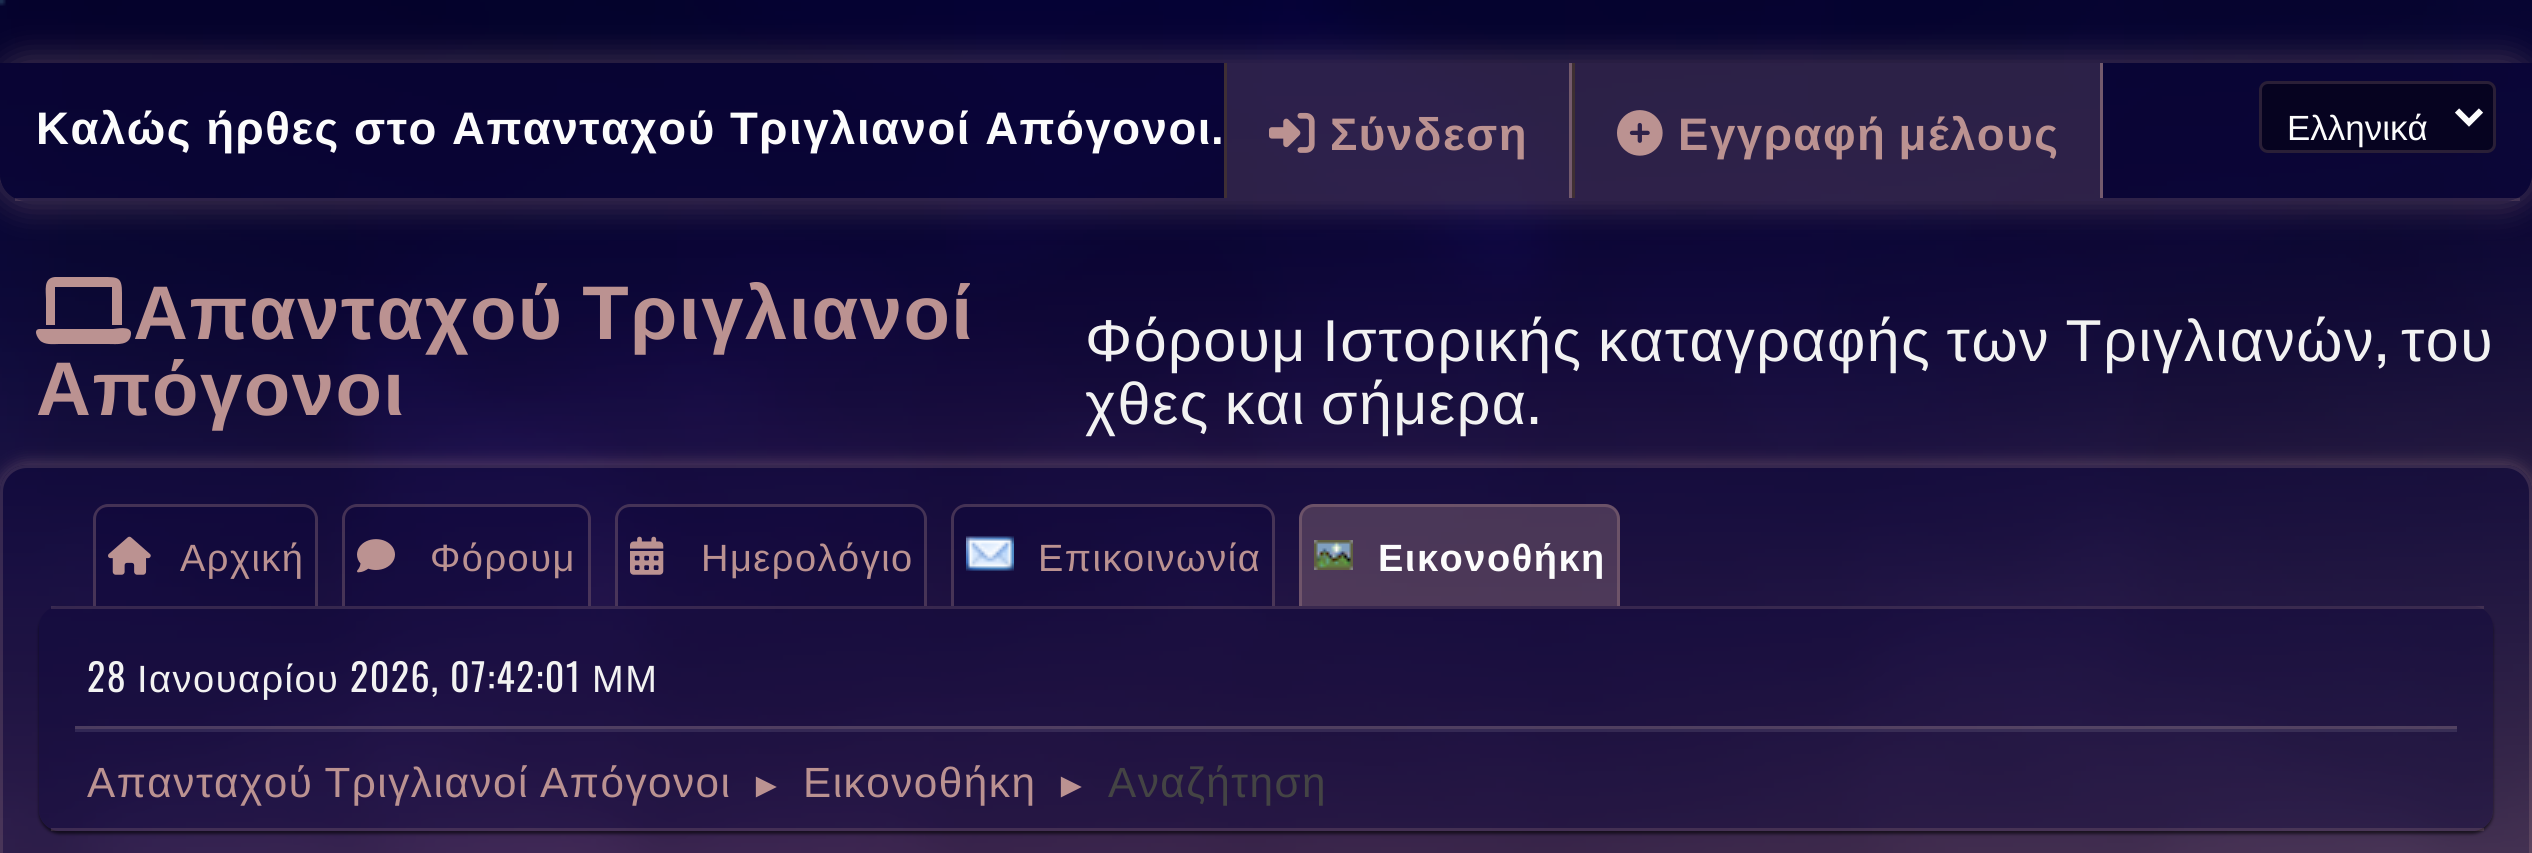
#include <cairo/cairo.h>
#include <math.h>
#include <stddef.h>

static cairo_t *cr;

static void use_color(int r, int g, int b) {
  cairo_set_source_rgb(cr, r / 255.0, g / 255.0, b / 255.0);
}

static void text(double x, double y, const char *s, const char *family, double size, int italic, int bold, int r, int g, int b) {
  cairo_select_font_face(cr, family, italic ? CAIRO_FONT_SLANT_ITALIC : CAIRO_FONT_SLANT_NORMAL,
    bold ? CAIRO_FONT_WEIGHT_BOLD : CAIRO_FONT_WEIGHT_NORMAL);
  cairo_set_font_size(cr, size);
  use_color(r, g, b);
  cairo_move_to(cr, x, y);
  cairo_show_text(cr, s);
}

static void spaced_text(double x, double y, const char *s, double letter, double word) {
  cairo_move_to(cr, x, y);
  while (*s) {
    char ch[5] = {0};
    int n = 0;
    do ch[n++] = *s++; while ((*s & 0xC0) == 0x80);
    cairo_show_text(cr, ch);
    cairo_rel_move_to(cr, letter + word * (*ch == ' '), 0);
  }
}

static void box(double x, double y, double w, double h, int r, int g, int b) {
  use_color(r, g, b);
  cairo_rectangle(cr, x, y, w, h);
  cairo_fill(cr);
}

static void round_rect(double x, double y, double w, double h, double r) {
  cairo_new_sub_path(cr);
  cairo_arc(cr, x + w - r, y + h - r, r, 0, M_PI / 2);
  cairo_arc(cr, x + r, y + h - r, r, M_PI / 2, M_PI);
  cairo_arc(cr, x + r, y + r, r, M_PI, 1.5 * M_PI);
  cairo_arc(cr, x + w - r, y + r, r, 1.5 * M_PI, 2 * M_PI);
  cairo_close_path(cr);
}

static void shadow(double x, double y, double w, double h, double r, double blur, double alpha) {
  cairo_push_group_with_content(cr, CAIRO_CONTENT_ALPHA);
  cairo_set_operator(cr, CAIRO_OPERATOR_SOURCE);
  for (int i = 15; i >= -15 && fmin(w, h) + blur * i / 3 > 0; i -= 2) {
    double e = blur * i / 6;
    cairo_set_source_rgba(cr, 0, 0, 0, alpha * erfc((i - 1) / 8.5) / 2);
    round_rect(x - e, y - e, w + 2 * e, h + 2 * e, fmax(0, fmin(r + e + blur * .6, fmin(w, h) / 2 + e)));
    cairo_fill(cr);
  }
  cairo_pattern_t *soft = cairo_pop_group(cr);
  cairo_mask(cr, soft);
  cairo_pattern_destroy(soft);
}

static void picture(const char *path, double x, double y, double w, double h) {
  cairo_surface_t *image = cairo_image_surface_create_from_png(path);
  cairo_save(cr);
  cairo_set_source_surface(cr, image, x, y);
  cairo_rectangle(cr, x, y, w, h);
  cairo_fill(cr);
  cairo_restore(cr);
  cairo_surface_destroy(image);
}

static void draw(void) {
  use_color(255, 255, 255);
  cairo_paint(cr);
  picture("img_01.png", 0, 0, 2532, 853);
  cairo_save(cr);
  cairo_set_fill_rule(cr, CAIRO_FILL_RULE_EVEN_ODD);
  cairo_new_path(cr);
  cairo_move_to(cr, 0, 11);
  cairo_line_to(cr, 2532, 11);
  cairo_line_to(cr, 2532, 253);
  cairo_line_to(cr, 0, 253);
  cairo_close_path(cr);
  cairo_move_to(cr, 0, 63);
  cairo_line_to(cr, 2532, 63);
  cairo_line_to(cr, 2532, 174);
  cairo_curve_to(cr, 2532, 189, 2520, 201, 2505, 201);
  cairo_line_to(cr, 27, 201);
  cairo_curve_to(cr, 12, 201, 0, 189, 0, 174);
  cairo_close_path(cr);
  cairo_clip(cr);
  use_color(187, 146, 145);
  shadow(-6, 57, 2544, 150, 33, 15, 0.3);
  cairo_restore(cr);
  cairo_set_source_rgba(cr, 0.051, 0.024, 0.227, 0.5);
  cairo_new_path(cr);
  cairo_move_to(cr, 0, 63);
  cairo_line_to(cr, 2532, 63);
  cairo_line_to(cr, 2532, 174);
  cairo_curve_to(cr, 2532, 189, 2520, 201, 2505, 201);
  cairo_line_to(cr, 27, 201);
  cairo_curve_to(cr, 12, 201, 0, 189, 0, 174);
  cairo_close_path(cr);
  cairo_fill(cr);
  cairo_set_source_rgba(cr, 0.733, 0.573, 0.569, 0.2);
  cairo_rectangle(cr, 15, 198, 2505, 3);
  cairo_fill(cr);
  cairo_set_source_rgba(cr, 0.733, 0.573, 0.569, 0.6);
  cairo_rectangle(cr, 1569, 63, 3, 135);
  cairo_fill(cr);
  box(1224, 63, 3, 135, 63, 47, 52);
  cairo_set_source_rgba(cr, 0.733, 0.573, 0.569, 0.2);
  cairo_rectangle(cr, 1227, 63, 342, 135);
  cairo_fill(cr);
  picture("img_02.png", 1269, 112, 46, 41);
  box(2100, 63, 3, 135, 116, 90, 109);
  cairo_set_source_rgba(cr, 0.733, 0.573, 0.176, 0.3);
  cairo_rectangle(cr, 1572, 63, 3, 135);
  cairo_fill(cr);
  cairo_set_source_rgba(cr, 0.733, 0.573, 0.569, 0.2);
  cairo_rectangle(cr, 1575, 63, 525, 135);
  cairo_fill(cr);
  picture("img_03.png", 1617, 110, 46, 46);
  use_color(6, 3, 32);
  round_rect(2259, 81, 237, 72, 9);
  cairo_fill(cr);
  round_rect(2260.5, 82.5, 234, 69, 7.5);
  cairo_set_source_rgba(cr, 0.733, 0.573, 0.569, 0.2);
  cairo_set_line_width(cr, 3);
  cairo_stroke(cr);
  cairo_new_path(cr);
  cairo_move_to(cr, 2457, 110.5);
  cairo_line_to(cr, 2469, 122.5);
  cairo_line_to(cr, 2481, 110.5);
  use_color(252, 252, 252);
  cairo_set_line_width(cr, 6);
  cairo_stroke(cr);
  use_color(187, 146, 145);
  cairo_new_path(cr);
  cairo_move_to(cr, 55, 277);
  cairo_curve_to(cr, 43, 278, 46, 291, 46, 299);
  cairo_line_to(cr, 46, 325);
  cairo_line_to(cr, 55, 325);
  cairo_line_to(cr, 55, 287);
  cairo_line_to(cr, 112, 287);
  cairo_line_to(cr, 112, 325);
  cairo_line_to(cr, 122, 325);
  cairo_line_to(cr, 122, 293);
  cairo_curve_to(cr, 122, 277, 118, 277, 103, 277);
  cairo_close_path(cr);
  cairo_move_to(cr, 39, 329);
  cairo_curve_to(cr, 32, 330, 39, 341, 42, 342);
  cairo_curve_to(cr, 47, 345, 55, 344, 59, 344);
  cairo_line_to(cr, 108, 344);
  cairo_curve_to(cr, 117, 344, 130, 346, 131, 334);
  cairo_curve_to(cr, 132, 325, 115, 329, 113, 329);
  cairo_close_path(cr);
  cairo_fill(cr);
  cairo_save(cr);
  cairo_set_fill_rule(cr, CAIRO_FILL_RULE_EVEN_ODD);
  cairo_new_path(cr);
  cairo_move_to(cr, 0, 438);
  cairo_line_to(cr, 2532, 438);
  cairo_line_to(cr, 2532, 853);
  cairo_line_to(cr, 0, 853);
  cairo_close_path(cr);
  cairo_move_to(cr, 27, 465);
  cairo_line_to(cr, 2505, 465);
  cairo_curve_to(cr, 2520, 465, 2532, 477, 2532, 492);
  cairo_line_to(cr, 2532, 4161);
  cairo_curve_to(cr, 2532, 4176, 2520, 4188, 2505, 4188);
  cairo_line_to(cr, 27, 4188);
  cairo_curve_to(cr, 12, 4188, 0, 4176, 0, 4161);
  cairo_line_to(cr, 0, 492);
  cairo_curve_to(cr, 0, 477, 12, 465, 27, 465);
  cairo_close_path(cr);
  cairo_clip(cr);
  use_color(187, 146, 145);
  shadow(-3, 462, 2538, 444, 30, 7.5, 0.3);
  cairo_restore(cr);
  cairo_set_source_rgba(cr, 0.051, 0.024, 0.227, 0.5);
  round_rect(0, 465, 2532, 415, 27);
  cairo_fill(cr);
  round_rect(1.5, 466.5, 2529, 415, 25.5);
  cairo_set_source_rgba(cr, 0.733, 0.573, 0.569, 0.2);
  cairo_set_line_width(cr, 3);
  cairo_stroke(cr);
  cairo_save(cr);
  cairo_set_fill_rule(cr, CAIRO_FILL_RULE_EVEN_ODD);
  cairo_new_path(cr);
  cairo_move_to(cr, 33, 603);
  cairo_line_to(cr, 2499, 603);
  cairo_line_to(cr, 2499, 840);
  cairo_line_to(cr, 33, 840);
  cairo_close_path(cr);
  cairo_move_to(cr, 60, 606);
  cairo_line_to(cr, 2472, 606);
  cairo_curve_to(cr, 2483.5, 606, 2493, 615.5, 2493, 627);
  cairo_line_to(cr, 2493, 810);
  cairo_curve_to(cr, 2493, 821.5, 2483.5, 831, 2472, 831);
  cairo_line_to(cr, 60, 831);
  cairo_curve_to(cr, 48.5, 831, 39, 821.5, 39, 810);
  cairo_line_to(cr, 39, 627);
  cairo_curve_to(cr, 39, 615.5, 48.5, 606, 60, 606);
  cairo_close_path(cr);
  cairo_clip(cr);
  use_color(0, 0, 0);
  shadow(39, 609, 2454, 225, 21, 1.5, 0.6);
  cairo_restore(cr);
  cairo_set_source_rgba(cr, 0.051, 0.024, 0.227, 0.4);
  cairo_new_path(cr);
  cairo_move_to(cr, 108, 504);
  cairo_line_to(cr, 303, 504);
  cairo_curve_to(cr, 311.5, 504, 318, 510.5, 318, 519);
  cairo_line_to(cr, 318, 606);
  cairo_line_to(cr, 93, 606);
  cairo_line_to(cr, 93, 519);
  cairo_curve_to(cr, 93, 510.5, 99.5, 504, 108, 504);
  cairo_close_path(cr);
  cairo_fill(cr);
  cairo_set_source_rgba(cr, 0.733, 0.573, 0.569, 0.3);
  cairo_set_fill_rule(cr, CAIRO_FILL_RULE_EVEN_ODD);
  cairo_new_path(cr);
  cairo_move_to(cr, 108, 504);
  cairo_line_to(cr, 303, 504);
  cairo_curve_to(cr, 311, 504, 318, 511, 318, 519);
  cairo_line_to(cr, 318, 606);
  cairo_line_to(cr, 93, 606);
  cairo_line_to(cr, 93, 519);
  cairo_curve_to(cr, 93, 511, 100, 504, 108, 504);
  cairo_close_path(cr);
  cairo_move_to(cr, 108, 507);
  cairo_line_to(cr, 303, 507);
  cairo_curve_to(cr, 310, 507, 315, 512, 315, 519);
  cairo_line_to(cr, 315, 606);
  cairo_line_to(cr, 96, 606);
  cairo_line_to(cr, 96, 519);
  cairo_curve_to(cr, 96, 512, 101, 507, 108, 507);
  cairo_close_path(cr);
  cairo_fill(cr);
  picture("img_04.png", 108, 536, 43, 39);
  cairo_set_source_rgba(cr, 0.051, 0.024, 0.227, 0.4);
  cairo_new_path(cr);
  cairo_move_to(cr, 357, 504);
  cairo_line_to(cr, 576, 504);
  cairo_curve_to(cr, 584.5, 504, 591, 510.5, 591, 519);
  cairo_line_to(cr, 591, 606);
  cairo_line_to(cr, 342, 606);
  cairo_line_to(cr, 342, 519);
  cairo_curve_to(cr, 342, 510.5, 348.5, 504, 357, 504);
  cairo_close_path(cr);
  cairo_fill(cr);
  cairo_set_source_rgba(cr, 0.733, 0.573, 0.569, 0.3);
  cairo_new_path(cr);
  cairo_move_to(cr, 357, 504);
  cairo_line_to(cr, 576, 504);
  cairo_curve_to(cr, 584, 504, 591, 511, 591, 519);
  cairo_line_to(cr, 591, 606);
  cairo_line_to(cr, 342, 606);
  cairo_line_to(cr, 342, 519);
  cairo_curve_to(cr, 342, 511, 349, 504, 357, 504);
  cairo_close_path(cr);
  cairo_move_to(cr, 357, 507);
  cairo_line_to(cr, 576, 507);
  cairo_curve_to(cr, 583, 507, 588, 512, 588, 519);
  cairo_line_to(cr, 588, 606);
  cairo_line_to(cr, 345, 606);
  cairo_line_to(cr, 345, 519);
  cairo_curve_to(cr, 345, 512, 350, 507, 357, 507);
  cairo_close_path(cr);
  cairo_fill(cr);
  picture("img_05.png", 357, 539, 38, 34);
  cairo_set_source_rgba(cr, 0.051, 0.024, 0.227, 0.4);
  cairo_new_path(cr);
  cairo_move_to(cr, 630, 504);
  cairo_line_to(cr, 912, 504);
  cairo_curve_to(cr, 920.5, 504, 927, 510.5, 927, 519);
  cairo_line_to(cr, 927, 606);
  cairo_line_to(cr, 615, 606);
  cairo_line_to(cr, 615, 519);
  cairo_curve_to(cr, 615, 510.5, 621.5, 504, 630, 504);
  cairo_close_path(cr);
  cairo_fill(cr);
  cairo_set_source_rgba(cr, 0.733, 0.573, 0.569, 0.3);
  cairo_new_path(cr);
  cairo_move_to(cr, 630, 504);
  cairo_line_to(cr, 912, 504);
  cairo_curve_to(cr, 920, 504, 927, 511, 927, 519);
  cairo_line_to(cr, 927, 606);
  cairo_line_to(cr, 615, 606);
  cairo_line_to(cr, 615, 519);
  cairo_curve_to(cr, 615, 511, 622, 504, 630, 504);
  cairo_close_path(cr);
  cairo_move_to(cr, 630, 507);
  cairo_line_to(cr, 912, 507);
  cairo_curve_to(cr, 919, 507, 924, 512, 924, 519);
  cairo_line_to(cr, 924, 606);
  cairo_line_to(cr, 618, 606);
  cairo_line_to(cr, 618, 519);
  cairo_curve_to(cr, 618, 512, 623, 507, 630, 507);
  cairo_close_path(cr);
  cairo_fill(cr);
  picture("img_06.png", 630, 536, 34, 39);
  cairo_set_source_rgba(cr, 0.051, 0.024, 0.227, 0.4);
  cairo_new_path(cr);
  cairo_move_to(cr, 966, 504);
  cairo_line_to(cr, 1260, 504);
  cairo_curve_to(cr, 1268.5, 504, 1275, 510.5, 1275, 519);
  cairo_line_to(cr, 1275, 606);
  cairo_line_to(cr, 951, 606);
  cairo_line_to(cr, 951, 519);
  cairo_curve_to(cr, 951, 510.5, 957.5, 504, 966, 504);
  cairo_close_path(cr);
  cairo_fill(cr);
  cairo_set_source_rgba(cr, 0.733, 0.573, 0.569, 0.3);
  cairo_new_path(cr);
  cairo_move_to(cr, 966, 504);
  cairo_line_to(cr, 1260, 504);
  cairo_curve_to(cr, 1268, 504, 1275, 511, 1275, 519);
  cairo_line_to(cr, 1275, 606);
  cairo_line_to(cr, 951, 606);
  cairo_line_to(cr, 951, 519);
  cairo_curve_to(cr, 951, 511, 958, 504, 966, 504);
  cairo_close_path(cr);
  cairo_move_to(cr, 966, 507);
  cairo_line_to(cr, 1260, 507);
  cairo_curve_to(cr, 1267, 507, 1272, 512, 1272, 519);
  cairo_line_to(cr, 1272, 606);
  cairo_line_to(cr, 954, 606);
  cairo_line_to(cr, 954, 519);
  cairo_curve_to(cr, 954, 512, 959, 507, 966, 507);
  cairo_close_path(cr);
  cairo_fill(cr);
  picture("img_07.png", 966, 536, 48, 35);
  cairo_new_path(cr);
  cairo_move_to(cr, 1314, 504);
  cairo_line_to(cr, 1605, 504);
  cairo_curve_to(cr, 1613.5, 504, 1620, 510.5, 1620, 519);
  cairo_line_to(cr, 1620, 606);
  cairo_line_to(cr, 1299, 606);
  cairo_line_to(cr, 1299, 519);
  cairo_curve_to(cr, 1299, 510.5, 1305.5, 504, 1314, 504);
  cairo_close_path(cr);
  cairo_fill(cr);
  cairo_new_path(cr);
  cairo_move_to(cr, 1314, 504);
  cairo_line_to(cr, 1605, 504);
  cairo_curve_to(cr, 1613, 504, 1620, 511, 1620, 519);
  cairo_line_to(cr, 1620, 606);
  cairo_line_to(cr, 1299, 606);
  cairo_line_to(cr, 1299, 519);
  cairo_curve_to(cr, 1299, 511, 1306, 504, 1314, 504);
  cairo_close_path(cr);
  cairo_move_to(cr, 1314, 507);
  cairo_line_to(cr, 1605, 507);
  cairo_curve_to(cr, 1612, 507, 1617, 512, 1617, 519);
  cairo_line_to(cr, 1617, 606);
  cairo_line_to(cr, 1302, 606);
  cairo_line_to(cr, 1302, 519);
  cairo_curve_to(cr, 1302, 512, 1307, 507, 1314, 507);
  cairo_close_path(cr);
  cairo_fill(cr);
  picture("img_08.png", 1314, 540, 39, 30);
  cairo_set_source_rgba(cr, 0.051, 0.024, 0.227, 0.4);
  round_rect(39, 606, 2454, 225, 21);
  cairo_fill(cr);
  cairo_set_source_rgba(cr, 0.733, 0.573, 0.569, 0.2);
  cairo_rectangle(cr, 51, 606, 2433, 3);
  cairo_fill(cr);
  cairo_rectangle(cr, 51, 828, 2433, 3);
  cairo_fill(cr);
  cairo_set_source_rgba(cr, 1, 1, 1, 0.1);
  cairo_rectangle(cr, 75, 726, 2382, 6);
  cairo_fill(cr);
  cairo_set_source_rgba(cr, 0.733, 0.573, 0.569, 0.2);
  cairo_rectangle(cr, 75, 726, 2382, 3);
  cairo_fill(cr);
  cairo_select_font_face(cr, "Liberation Sans", CAIRO_FONT_SLANT_NORMAL, CAIRO_FONT_WEIGHT_BOLD);
  cairo_set_font_size(cr, 45.6);
  use_color(252, 252, 252);
  spaced_text(36, 144, "Καλώς ήρθες στο", 1.5, 0);
  spaced_text(452, 144, "Απανταχού Τριγλιανοί Απόγονοι", 1.5, 0);
  spaced_text(1211, 144, ".", 1.5, 0);
  use_color(187, 146, 145);
  spaced_text(1330, 150, "Σύνδεση", 1.5, 0);
  spaced_text(1678, 150, "Εγγραφή μέλους", 1.5, -2);
  text(2287, 140, "Ελληνικά", "Liberation Sans", 35, 0, 0, 252, 252, 252);
  cairo_select_font_face(cr, "Liberation Sans", CAIRO_FONT_SLANT_NORMAL, CAIRO_FONT_WEIGHT_BOLD);
  cairo_set_font_size(cr, 76);
  use_color(187, 146, 145);
  spaced_text(133, 339, "Απανταχού Τριγλιανοί", 1.5, -4);
  spaced_text(36, 415, "Απόγονοι", 1.5, 0);
  cairo_select_font_face(cr, "Liberation Sans", CAIRO_FONT_SLANT_NORMAL, CAIRO_FONT_WEIGHT_NORMAL);
  cairo_set_font_size(cr, 59.1);
  use_color(242, 242, 242);
  spaced_text(1085, 361, "Φόρουμ Ιστορικής καταγραφής των Τριγλιανών", 1.5, -2.5);
  cairo_select_font_face(cr, "Oswald", CAIRO_FONT_SLANT_NORMAL, CAIRO_FONT_WEIGHT_NORMAL);
  spaced_text(2376, 361, ",", 1.5, 0);
  cairo_select_font_face(cr, "Liberation Sans", CAIRO_FONT_SLANT_NORMAL, CAIRO_FONT_WEIGHT_NORMAL);
  spaced_text(2401, 361, "του", 1.5, 0);
  spaced_text(1085, 424, "χθες και σήμερα", 1.5, -3);
  cairo_select_font_face(cr, "Oswald", CAIRO_FONT_SLANT_NORMAL, CAIRO_FONT_WEIGHT_NORMAL);
  spaced_text(1528, 424, ".", 1.5, 0);
  cairo_select_font_face(cr, "Liberation Sans", CAIRO_FONT_SLANT_NORMAL, CAIRO_FONT_WEIGHT_NORMAL);
  cairo_set_font_size(cr, 38);
  use_color(187, 146, 145);
  spaced_text(180, 571, "Αρχική", 1.5, 0);
  spaced_text(430, 571, "Φόρουμ", 1.5, 0);
  spaced_text(701, 571, "Ημερολόγιο", 1.5, 0);
  spaced_text(1038, 571, "Επικοινωνία", 1.5, 0);
  cairo_select_font_face(cr, "Liberation Sans", CAIRO_FONT_SLANT_NORMAL, CAIRO_FONT_WEIGHT_BOLD);
  use_color(252, 252, 252);
  spaced_text(1378, 571, "Εικονοθήκη", 1.5, 0);
  cairo_select_font_face(cr, "Oswald", CAIRO_FONT_SLANT_NORMAL, CAIRO_FONT_WEIGHT_NORMAL);
  use_color(242, 242, 242);
  spaced_text(87, 692, "28", 1.5, 0);
  cairo_select_font_face(cr, "Liberation Sans", CAIRO_FONT_SLANT_NORMAL, CAIRO_FONT_WEIGHT_NORMAL);
  spaced_text(137, 692, "Ιανουαρίου", 1.5, 0);
  cairo_select_font_face(cr, "Oswald", CAIRO_FONT_SLANT_NORMAL, CAIRO_FONT_WEIGHT_NORMAL);
  spaced_text(350, 692, "2026, 07:42:01", 1.5, 0);
  cairo_select_font_face(cr, "Liberation Sans", CAIRO_FONT_SLANT_NORMAL, CAIRO_FONT_WEIGHT_NORMAL);
  spaced_text(592, 692, "ΜΜ", 1.5, 0);
  cairo_set_font_size(cr, 42.25);
  use_color(187, 146, 145);
  spaced_text(87, 797, "Απανταχού Τριγλιανοί Απόγονοι", 1.5, -2);
  cairo_set_font_size(cr, 35);
  spaced_text(749, 797, "►", 1.5, 0);
  cairo_set_font_size(cr, 42.25);
  spaced_text(803, 797, "Εικονοθήκη", 1.5, 0);
  cairo_set_font_size(cr, 35);
  spaced_text(1054, 797, "►", 1.5, 0);
  cairo_set_font_size(cr, 42.25);
  use_color(68, 68, 68);
  spaced_text(1108, 797, "Αναζήτηση", 1.5, 0);
}

int main(void) {
  cairo_surface_t *surface = cairo_image_surface_create(CAIRO_FORMAT_RGB24, 2532, 853);
  cr = cairo_create(surface);
  cairo_font_options_t *options = cairo_font_options_create();
  cairo_font_options_set_hint_metrics(options, CAIRO_HINT_METRICS_OFF);
  cairo_font_options_set_hint_style(options, CAIRO_HINT_STYLE_NONE);
  cairo_set_font_options(cr, options);
  cairo_set_miter_limit(cr, 4);
  draw();
  cairo_surface_write_to_png(surface, "out.png");
  cairo_font_options_destroy(options);
  cairo_destroy(cr);
  cairo_surface_destroy(surface);
  return 0;
}
